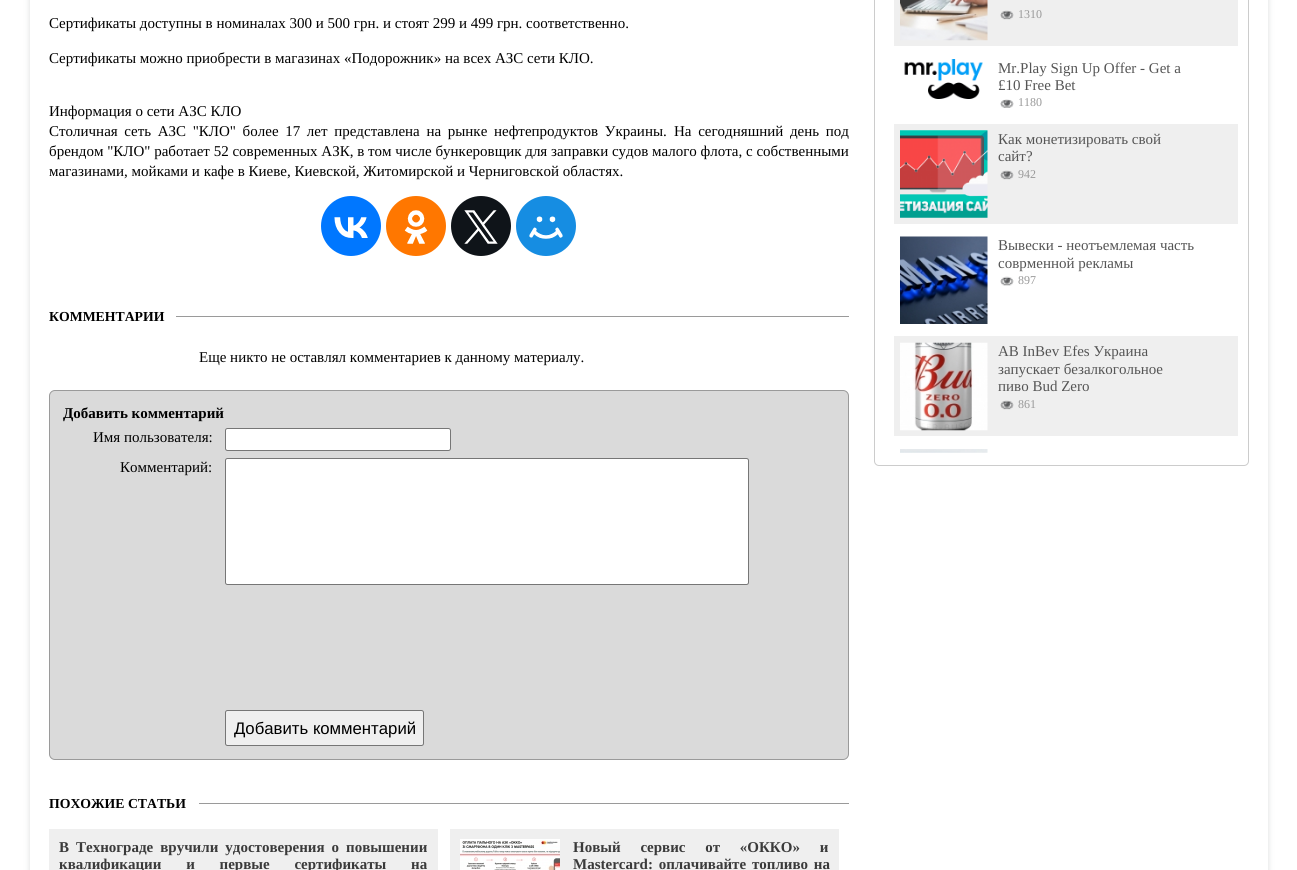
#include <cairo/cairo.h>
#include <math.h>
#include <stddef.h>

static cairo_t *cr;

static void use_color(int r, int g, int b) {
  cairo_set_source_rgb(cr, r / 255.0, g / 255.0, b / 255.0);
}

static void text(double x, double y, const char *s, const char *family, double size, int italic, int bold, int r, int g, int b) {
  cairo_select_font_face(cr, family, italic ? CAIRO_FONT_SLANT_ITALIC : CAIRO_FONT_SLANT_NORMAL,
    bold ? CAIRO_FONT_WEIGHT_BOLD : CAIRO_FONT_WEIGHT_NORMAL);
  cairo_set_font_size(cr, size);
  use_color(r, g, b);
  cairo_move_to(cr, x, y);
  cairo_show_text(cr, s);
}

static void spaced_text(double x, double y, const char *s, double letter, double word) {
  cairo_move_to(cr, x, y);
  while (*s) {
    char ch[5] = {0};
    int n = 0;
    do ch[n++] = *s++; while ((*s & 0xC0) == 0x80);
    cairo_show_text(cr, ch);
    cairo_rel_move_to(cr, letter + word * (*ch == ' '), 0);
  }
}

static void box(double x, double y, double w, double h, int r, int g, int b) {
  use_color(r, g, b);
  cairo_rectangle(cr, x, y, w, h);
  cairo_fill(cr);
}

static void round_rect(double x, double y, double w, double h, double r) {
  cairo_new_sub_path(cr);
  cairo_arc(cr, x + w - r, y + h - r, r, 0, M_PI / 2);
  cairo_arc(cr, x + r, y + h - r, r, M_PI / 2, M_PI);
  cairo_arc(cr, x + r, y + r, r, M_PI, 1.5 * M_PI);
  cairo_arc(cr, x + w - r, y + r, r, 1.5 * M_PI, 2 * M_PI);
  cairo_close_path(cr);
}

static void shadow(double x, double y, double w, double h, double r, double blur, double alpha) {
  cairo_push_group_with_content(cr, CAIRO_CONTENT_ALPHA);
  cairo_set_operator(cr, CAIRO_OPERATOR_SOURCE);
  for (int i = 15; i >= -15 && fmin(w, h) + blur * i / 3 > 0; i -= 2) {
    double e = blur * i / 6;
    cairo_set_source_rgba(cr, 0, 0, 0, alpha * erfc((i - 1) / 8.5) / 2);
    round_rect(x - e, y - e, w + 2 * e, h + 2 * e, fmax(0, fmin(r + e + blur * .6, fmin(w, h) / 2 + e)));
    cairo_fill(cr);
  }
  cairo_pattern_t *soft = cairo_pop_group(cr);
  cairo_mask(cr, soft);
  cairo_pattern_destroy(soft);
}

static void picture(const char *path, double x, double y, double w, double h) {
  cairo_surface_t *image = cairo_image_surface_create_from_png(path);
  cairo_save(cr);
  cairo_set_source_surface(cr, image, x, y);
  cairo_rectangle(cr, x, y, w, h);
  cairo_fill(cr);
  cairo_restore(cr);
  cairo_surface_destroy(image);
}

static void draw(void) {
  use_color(255, 255, 255);
  cairo_paint(cr);
  cairo_save(cr);
  cairo_set_fill_rule(cr, CAIRO_FILL_RULE_EVEN_ODD);
  cairo_new_path(cr);
  cairo_move_to(cr, 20, 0);
  cairo_line_to(cr, 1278, 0);
  cairo_line_to(cr, 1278, 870);
  cairo_line_to(cr, 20, 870);
  cairo_close_path(cr);
  cairo_move_to(cr, 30, -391);
  cairo_line_to(cr, 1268, -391);
  cairo_line_to(cr, 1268, 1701);
  cairo_line_to(cr, 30, 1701);
  cairo_close_path(cr);
  cairo_clip(cr);
  use_color(218, 220, 220);
  shadow(30, -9, 1238, 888, 0, 3, 1);
  cairo_restore(cr);
  use_color(0, 119, 255);
  cairo_arc(cr, 351, 226, 30, 0, 2 * M_PI);
  cairo_fill(cr);
  picture("img_01.png", 334, 217, 34, 21);
  use_color(255, 119, 0);
  cairo_arc(cr, 416, 226, 30, 0, 2 * M_PI);
  cairo_fill(cr);
  picture("img_02.png", 404, 210, 24, 34);
  use_color(15, 20, 25);
  cairo_arc(cr, 481, 226, 30, 0, 2 * M_PI);
  cairo_fill(cr);
  picture("img_03.png", 464, 210, 34, 34);
  use_color(22, 141, 226);
  cairo_arc(cr, 546, 226, 30, 0, 2 * M_PI);
  cairo_fill(cr);
  picture("img_04.png", 529, 216, 34, 23);
  box(176, 316, 673, 1, 154, 154, 154);
  use_color(218, 218, 218);
  round_rect(49.5, 390.5, 799, 369, 5.5);
  cairo_fill_preserve(cr);
  use_color(154, 154, 154);
  cairo_set_line_width(cr, 1);
  cairo_stroke(cr);
  use_color(255, 255, 255);
  round_rect(225.5, 428.5, 225, 22, 2);
  cairo_fill_preserve(cr);
  use_color(118, 118, 118);
  cairo_stroke(cr);
  use_color(255, 255, 255);
  round_rect(225.5, 458.5, 523, 126, 2);
  cairo_fill_preserve(cr);
  use_color(118, 118, 118);
  cairo_stroke(cr);
  use_color(239, 239, 239);
  round_rect(225.5, 710.5, 198, 35, 2);
  cairo_fill_preserve(cr);
  use_color(118, 118, 118);
  cairo_stroke(cr);
  box(199, 803, 650, 1, 154, 154, 154);
  box(49, 829, 389, 41, 239, 239, 239);
  box(450, 829, 389, 41, 239, 239, 239);
  picture("img_05.png", 460, 839, 100, 31);
  cairo_new_path(cr);
  cairo_move_to(cr, 874.5, -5.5);
  cairo_line_to(cr, 1244, -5.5);
  cairo_curve_to(cr, 1246.5, -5.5, 1248.5, -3.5, 1248.5, -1);
  cairo_line_to(cr, 1248.5, 461);
  cairo_curve_to(cr, 1248.5, 463.5, 1246.5, 465.5, 1244, 465.5);
  cairo_line_to(cr, 879, 465.5);
  cairo_curve_to(cr, 876.5, 465.5, 874.5, 463.5, 874.5, 461);
  cairo_close_path(cr);
  use_color(204, 204, 204);
  cairo_stroke(cr);
  box(894, 0, 344, 46, 239, 239, 239);
  picture("img_06.png", 900, 0, 88, 41);
  picture("img_07.png", 1000, 10, 14, 10);
  picture("img_08.png", 904, 59, 79, 40);
  picture("img_09.png", 1000, 99, 14, 9);
  box(894, 124, 344, 100, 239, 239, 239);
  picture("img_10.png", 900, 130, 88, 88);
  picture("img_07.png", 1000, 170, 14, 10);
  picture("img_11.png", 900, 236, 88, 88);
  picture("img_12.png", 1000, 276, 14, 10);
  box(894, 336, 344, 100, 239, 239, 239);
  picture("img_13.png", 900, 342, 88, 89);
  picture("img_07.png", 1000, 400, 14, 10);
  picture("img_14.png", 900, 449, 88, 4);
  text(49, 28, "Сертификаты доступны в номиналах 300 и 500 грн. и стоят 299 и 499 грн. соответственно.", "Liberation Serif", 15, 0, 0, 0, 0, 0);
  text(49, 63, "Сертификаты можно приобрести в магазинах «Подорожник» на всех АЗС сети КЛО.", "Liberation Serif", 15, 0, 0, 0, 0, 0);
  text(49, 116, "Информация о сети АЗС КЛО", "Liberation Serif", 15, 0, 0, 0, 0, 0);
  spaced_text(49, 136, "Столичная сеть АЗС \"КЛО\" более 17 лет представлена на рынке нефтепродуктов Украины.", 0, 2.9);
  spaced_text(674, 136, "На сегодняшний день под", 0, 2.9);
  text(49, 156, "брендом \"КЛО\" работает 52 современных АЗК, в том числе бункеровщик для заправки судов малого флота, с собственными", "Liberation Serif", 15, 0, 0, 0, 0, 0);
  text(49, 176, "магазинами, мойками и кафе в Киеве, Киевской, Житомирской и Черниговской областях.", "Liberation Serif", 15, 0, 0, 0, 0, 0);
  text(49, 321, "КОММЕНТАРИИ", "Liberation Serif", 13.75, 0, 1, 0, 0, 0);
  text(199, 362, "Еще никто не оставлял комментариев к данному материалу.", "Liberation Serif", 15, 0, 0, 0, 0, 0);
  text(63, 418, "Добавить комментарий", "Liberation Serif", 15, 0, 1, 0, 0, 0);
  text(93, 442, "Имя пользователя:", "Liberation Serif", 15, 0, 0, 0, 0, 0);
  text(120, 472, "Комментарий:", "Liberation Serif", 15, 0, 0, 0, 0, 0);
  text(234, 734, "Добавить комментарий", "Liberation Sans", 16.75, 0, 0, 0, 0, 0);
  text(49, 808, "ПОХОЖИЕ СТАТЬИ", "Liberation Serif", 13.75, 0, 1, 0, 0, 0);
  cairo_set_font_size(cr, 15);
  use_color(58, 58, 58);
  spaced_text(59, 852, "В Технограде вручили удостоверения о повышении", 0, 3.25);
  spaced_text(59, 869, "квалификации и первые сертификаты на", 0, 21);
  spaced_text(573, 852, "Новый сервис от «ОККО» и", 0, 16);
  spaced_text(573, 869, "Mastercard: оплачивайте топливо на", 0, 2);
  text(1018, 18, "1310", "Liberation Serif", 12, 0, 0, 153, 153, 153);
  text(998, 73, "Mr.Play Sign Up Offer - Get a", "Liberation Serif", 15, 0, 0, 85, 85, 85);
  text(998, 90, "£10 Free Bet", "Liberation Serif", 15, 0, 0, 85, 85, 85);
  text(1018, 106, "1180", "Liberation Serif", 12, 0, 0, 153, 153, 153);
  text(998, 144, "Как монетизировать свой", "Liberation Serif", 15, 0, 0, 85, 85, 85);
  text(998, 161, "сайт?", "Liberation Serif", 15, 0, 0, 85, 85, 85);
  text(1018, 178, "942", "Liberation Serif", 12, 0, 0, 153, 153, 153);
  text(998, 250, "Вывески - неотъемлемая часть", "Liberation Serif", 15, 0, 0, 85, 85, 85);
  text(998, 268, "соврменной рекламы", "Liberation Serif", 15, 0, 0, 85, 85, 85);
  text(1018, 284, "897", "Liberation Serif", 12, 0, 0, 153, 153, 153);
  text(998, 356, "AB InBev Efes Украина", "Liberation Serif", 15, 0, 0, 85, 85, 85);
  text(998, 374, "запускает безалкогольное", "Liberation Serif", 15, 0, 0, 85, 85, 85);
  text(998, 391, "пиво Bud Zero", "Liberation Serif", 15, 0, 0, 85, 85, 85);
  text(1018, 408, "861", "Liberation Serif", 12, 0, 0, 153, 153, 153);
}

int main(void) {
  cairo_surface_t *surface = cairo_image_surface_create(CAIRO_FORMAT_RGB24, 1297, 870);
  cr = cairo_create(surface);
  cairo_font_options_t *options = cairo_font_options_create();
  cairo_font_options_set_hint_metrics(options, CAIRO_HINT_METRICS_OFF);
  cairo_font_options_set_hint_style(options, CAIRO_HINT_STYLE_NONE);
  cairo_set_font_options(cr, options);
  cairo_set_miter_limit(cr, 4);
  draw();
  cairo_surface_write_to_png(surface, "out.png");
  cairo_font_options_destroy(options);
  cairo_destroy(cr);
  cairo_surface_destroy(surface);
  return 0;
}
